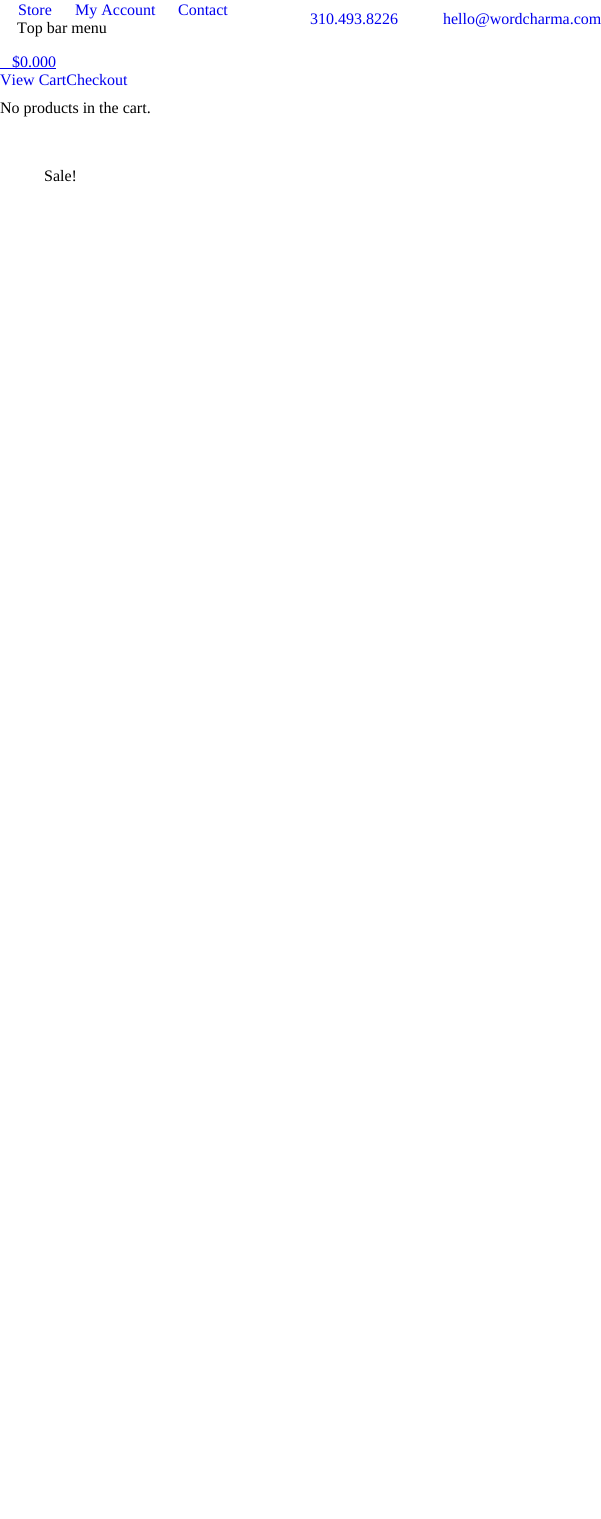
#include <cairo/cairo.h>
#include <math.h>
#include <stddef.h>

static cairo_t *cr;

static void use_color(int r, int g, int b) {
  cairo_set_source_rgb(cr, r / 255.0, g / 255.0, b / 255.0);
}

static void text(double x, double y, const char *s, const char *family, double size, int italic, int bold, int r, int g, int b) {
  cairo_select_font_face(cr, family, italic ? CAIRO_FONT_SLANT_ITALIC : CAIRO_FONT_SLANT_NORMAL,
    bold ? CAIRO_FONT_WEIGHT_BOLD : CAIRO_FONT_WEIGHT_NORMAL);
  cairo_set_font_size(cr, size);
  use_color(r, g, b);
  cairo_move_to(cr, x, y);
  cairo_show_text(cr, s);
}

static void box(double x, double y, double w, double h, int r, int g, int b) {
  use_color(r, g, b);
  cairo_rectangle(cr, x, y, w, h);
  cairo_fill(cr);
}

static void draw(void) {
  use_color(255, 255, 255);
  cairo_paint(cr);
  box(0, 68, 56, 1, 0, 0, 238);
  text(18, 15, "Store", "Liberation Serif", 16, 0, 0, 0, 0, 238);
  text(75, 15, "My Account", "Liberation Serif", 16, 0, 0, 0, 0, 238);
  text(178, 15, "Contact", "Liberation Serif", 16, 0, 0, 0, 0, 238);
  text(17, 33, "Top bar menu", "Liberation Serif", 16, 0, 0, 0, 0, 0);
  text(310, 24, "310.493.8226", "Liberation Serif", 16, 0, 0, 0, 0, 238);
  text(443, 24, "hello@wordcharma.com", "Liberation Serif", 16, 0, 0, 0, 0, 238);
  text(12, 67, "$0.000", "Liberation Serif", 16, 0, 0, 0, 0, 238);
  text(0, 85, "View CartCheckout", "Liberation Serif", 16, 0, 0, 0, 0, 238);
  text(0, 113, "No products in the cart.", "Liberation Serif", 16, 0, 0, 0, 0, 0);
  text(44, 181, "Sale!", "Liberation Serif", 16, 0, 0, 0, 0, 0);
}

int main(void) {
  cairo_surface_t *surface = cairo_image_surface_create(CAIRO_FORMAT_RGB24, 601, 1519);
  cr = cairo_create(surface);
  cairo_font_options_t *options = cairo_font_options_create();
  cairo_font_options_set_hint_metrics(options, CAIRO_HINT_METRICS_OFF);
  cairo_font_options_set_hint_style(options, CAIRO_HINT_STYLE_NONE);
  cairo_set_font_options(cr, options);
  cairo_set_miter_limit(cr, 4);
  draw();
  cairo_surface_write_to_png(surface, "out.png");
  cairo_font_options_destroy(options);
  cairo_destroy(cr);
  cairo_surface_destroy(surface);
  return 0;
}
